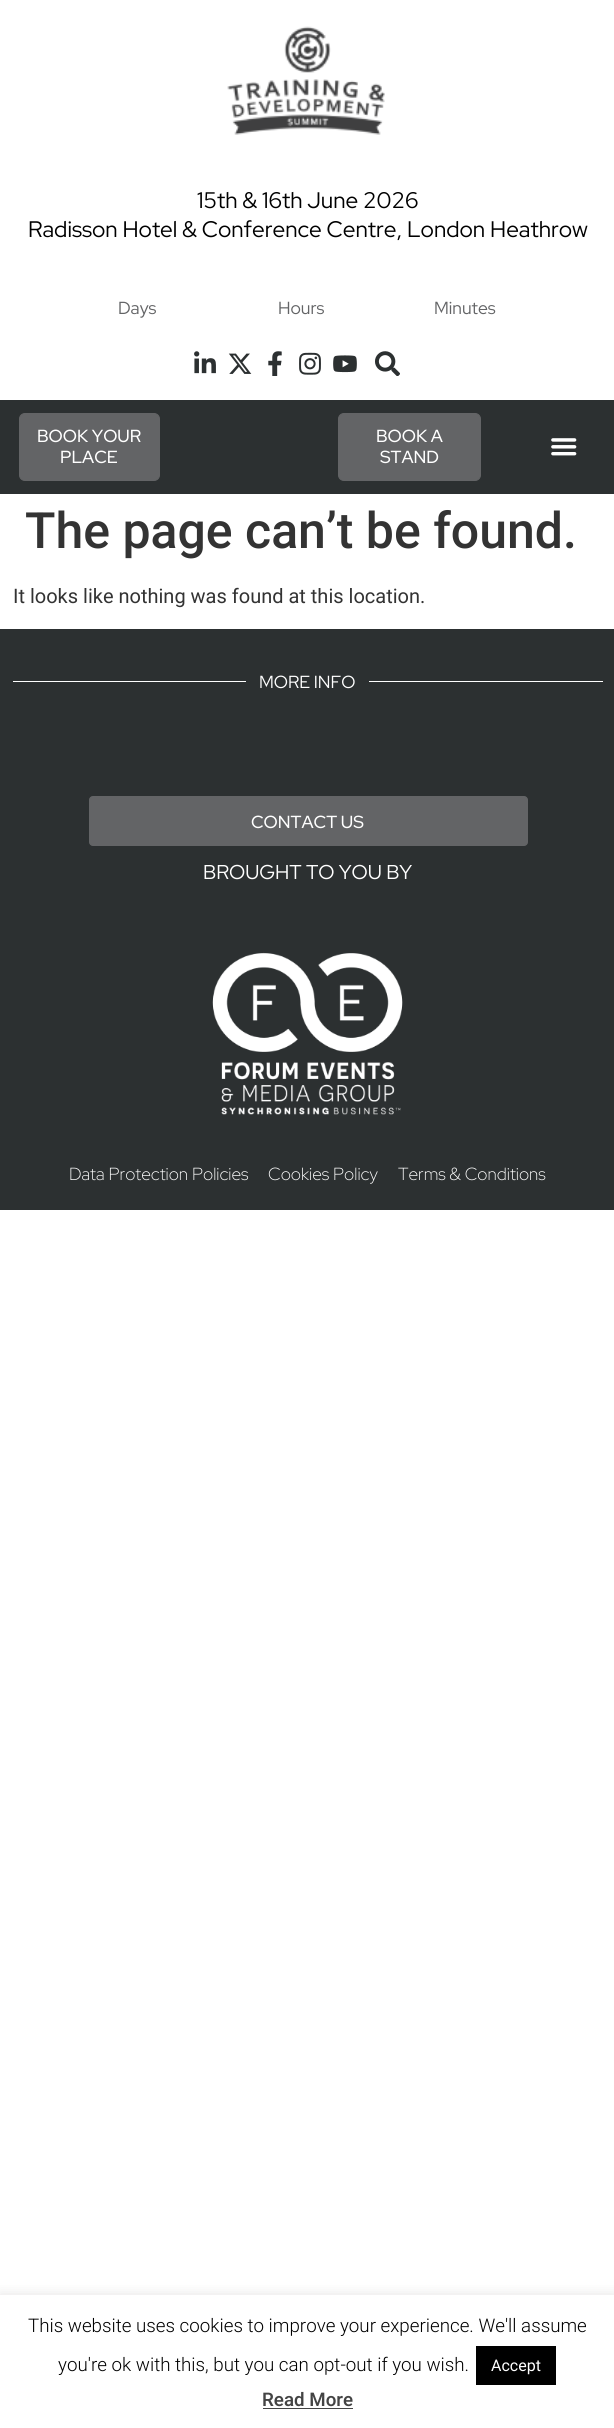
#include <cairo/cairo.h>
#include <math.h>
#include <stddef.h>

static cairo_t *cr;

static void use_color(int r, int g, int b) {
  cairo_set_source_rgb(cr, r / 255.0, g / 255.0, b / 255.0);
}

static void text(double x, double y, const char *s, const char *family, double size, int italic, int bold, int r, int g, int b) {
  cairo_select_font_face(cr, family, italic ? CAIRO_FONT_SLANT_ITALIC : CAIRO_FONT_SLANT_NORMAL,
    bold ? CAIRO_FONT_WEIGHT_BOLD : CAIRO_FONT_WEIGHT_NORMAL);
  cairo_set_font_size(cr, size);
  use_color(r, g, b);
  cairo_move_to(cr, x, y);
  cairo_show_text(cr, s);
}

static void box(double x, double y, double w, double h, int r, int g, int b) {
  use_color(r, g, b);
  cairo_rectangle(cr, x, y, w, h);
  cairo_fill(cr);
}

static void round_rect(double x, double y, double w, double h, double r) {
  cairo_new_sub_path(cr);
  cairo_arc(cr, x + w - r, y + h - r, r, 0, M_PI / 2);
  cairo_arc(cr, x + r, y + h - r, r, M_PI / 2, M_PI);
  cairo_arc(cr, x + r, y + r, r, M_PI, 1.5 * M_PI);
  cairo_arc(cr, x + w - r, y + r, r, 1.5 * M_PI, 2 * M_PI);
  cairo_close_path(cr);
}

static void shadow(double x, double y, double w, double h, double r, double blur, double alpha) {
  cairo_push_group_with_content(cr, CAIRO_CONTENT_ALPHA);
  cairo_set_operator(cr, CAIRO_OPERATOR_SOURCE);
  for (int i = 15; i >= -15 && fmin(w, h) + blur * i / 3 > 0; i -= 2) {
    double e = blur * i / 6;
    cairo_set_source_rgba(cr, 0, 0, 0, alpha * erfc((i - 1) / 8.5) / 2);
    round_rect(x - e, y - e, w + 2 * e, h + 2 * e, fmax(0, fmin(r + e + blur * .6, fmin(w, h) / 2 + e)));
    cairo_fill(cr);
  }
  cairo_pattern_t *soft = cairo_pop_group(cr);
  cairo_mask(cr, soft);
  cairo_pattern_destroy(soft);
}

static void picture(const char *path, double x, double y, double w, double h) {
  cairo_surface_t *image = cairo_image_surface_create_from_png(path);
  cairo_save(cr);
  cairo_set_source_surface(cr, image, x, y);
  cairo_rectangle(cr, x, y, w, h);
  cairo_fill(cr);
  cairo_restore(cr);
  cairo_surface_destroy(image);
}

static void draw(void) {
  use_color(255, 255, 255);
  cairo_paint(cr);
  picture("img_01.png", 227, 26, 158, 109);
  picture("img_02.png", 194, 351, 22, 23);
  picture("img_03.png", 228, 353, 24, 21);
  picture("img_04.png", 268, 351, 14, 25);
  picture("img_05.png", 299, 352, 22, 23);
  picture("img_06.png", 333, 355, 24, 18);
  picture("img_07.png", 375, 351, 25, 25);
  box(0, 400, 614, 94, 44, 48, 49);
  use_color(99, 100, 102);
  round_rect(19.5, 413.5, 140, 67, 5.5);
  cairo_fill_preserve(cr);
  cairo_set_line_width(cr, 1);
  cairo_stroke(cr);
  round_rect(338.5, 413.5, 142, 67, 5.5);
  cairo_fill_preserve(cr);
  cairo_stroke(cr);
  picture("img_08.png", 551, 438, 26, 18);
  box(0, 629, 614, 581, 44, 48, 49);
  box(13, 681, 233, 1, 255, 255, 255);
  box(369, 681, 234, 1, 255, 255, 255);
  use_color(99, 100, 102);
  round_rect(89.5, 796.5, 438, 49, 3.5);
  cairo_fill_preserve(cr);
  cairo_stroke(cr);
  picture("img_09.png", 212, 952, 191, 163);
  cairo_save(cr);
  cairo_rectangle(cr, 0, 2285, 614, 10);
  cairo_clip(cr);
  use_color(172, 171, 171);
  shadow(0, 2294, 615, 134, 0, 6, 0.3);
  cairo_restore(cr);
  box(476, 2346, 80, 39, 0, 0, 0);
  box(263, 2408, 90, 1, 68, 68, 68);
  text(197, 208, "15th & 16th June 2026", "Red Hat Display", 22.5, 0, 0, 0, 0, 0);
  text(28, 237, "Radisson Hotel & Conference Centre, London Heathrow", "Red Hat Display", 22.5, 0, 0, 0, 0, 0);
  text(118, 314, "Days", "Red Hat Display", 17.5, 0, 0, 99, 100, 102);
  text(278, 314, "Hours", "Red Hat Display", 17.5, 0, 0, 99, 100, 102);
  text(434, 314, "Minutes", "Red Hat Display", 17.5, 0, 0, 99, 100, 102);
  text(37, 442, "BOOK YOUR", "Red Hat Display Medium", 17.5, 0, 0, 255, 255, 255);
  text(60, 463, "PLACE", "Red Hat Display Medium", 17.5, 0, 0, 255, 255, 255);
  text(376, 442, "BOOK A", "Red Hat Display Medium", 17.5, 0, 0, 255, 255, 255);
  text(380, 463, "STAND", "Red Hat Display Medium", 17.5, 0, 0, 255, 255, 255);
  text(25, 548, "The page can’t be found.", "Roboto Medium", 50, 0, 0, 51, 51, 51);
  text(13, 603, "It looks like nothing was found at this location.", "Roboto", 20, 0, 0, 51, 51, 51);
  text(259, 688, "MORE INFO", "Red Hat Display", 17.5, 0, 0, 255, 255, 255);
  text(251, 828, "CONTACT US", "Red Hat Display Medium", 17.5, 0, 0, 255, 255, 255);
  text(203, 879, "BROUGHT TO YOU BY", "Red Hat Display", 20, 0, 0, 255, 255, 255);
  text(69, 1180, "Data Protection Policies", "Red Hat Display Light", 17.5, 0, 0, 255, 255, 255);
  text(268, 1180, "Cookies Policy", "Red Hat Display Light", 17.5, 0, 0, 255, 255, 255);
  text(398, 1180, "Terms & Conditions", "Red Hat Display Light", 17.5, 0, 0, 255, 255, 255);
  text(28, 2332, "This website uses cookies to improve your experience. We'll assume", "Roboto Light", 18.75, 0, 0, 0, 0, 0);
  text(58, 2371, "you're ok with this, but you can opt-out if you wish.", "Roboto Light", 18.75, 0, 0, 0, 0, 0);
  text(491, 2371, "Accept", "Roboto", 16, 0, 0, 255, 255, 255);
  text(262, 2406, "Read More", "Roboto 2 Medium", 18.75, 0, 0, 68, 68, 68);
}

int main(void) {
  cairo_surface_t *surface = cairo_image_surface_create(CAIRO_FORMAT_RGB24, 614, 2428);
  cr = cairo_create(surface);
  cairo_font_options_t *options = cairo_font_options_create();
  cairo_font_options_set_hint_metrics(options, CAIRO_HINT_METRICS_OFF);
  cairo_font_options_set_hint_style(options, CAIRO_HINT_STYLE_NONE);
  cairo_set_font_options(cr, options);
  cairo_set_miter_limit(cr, 4);
  draw();
  cairo_surface_write_to_png(surface, "out.png");
  cairo_font_options_destroy(options);
  cairo_destroy(cr);
  cairo_surface_destroy(surface);
  return 0;
}
